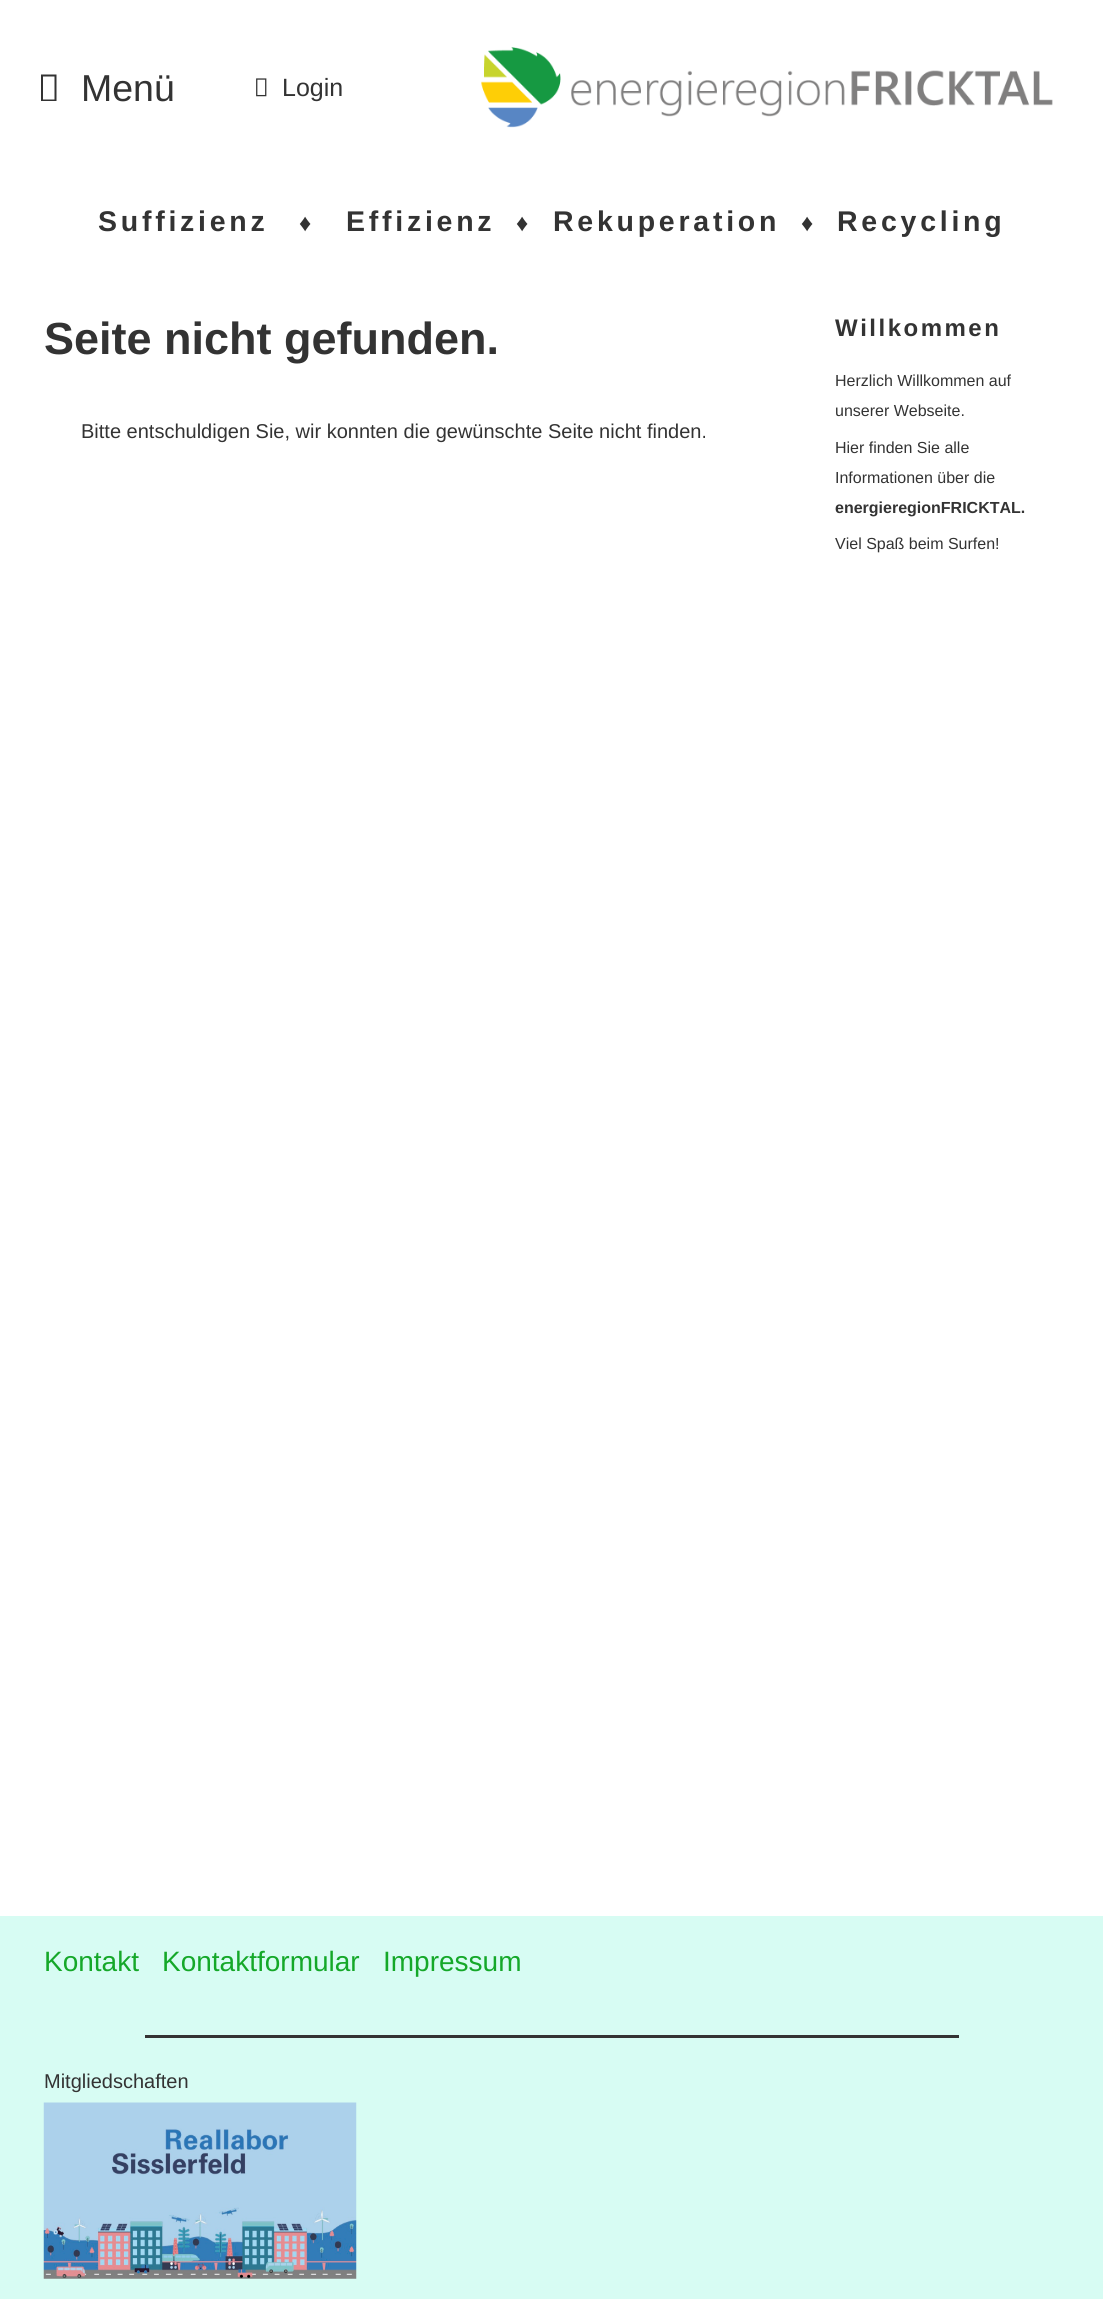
#include <cairo/cairo.h>
#include <math.h>
#include <stddef.h>

static cairo_t *cr;

static void use_color(int r, int g, int b) {
  cairo_set_source_rgb(cr, r / 255.0, g / 255.0, b / 255.0);
}

static void text(double x, double y, const char *s, const char *family, double size, int italic, int bold, int r, int g, int b) {
  cairo_select_font_face(cr, family, italic ? CAIRO_FONT_SLANT_ITALIC : CAIRO_FONT_SLANT_NORMAL,
    bold ? CAIRO_FONT_WEIGHT_BOLD : CAIRO_FONT_WEIGHT_NORMAL);
  cairo_set_font_size(cr, size);
  use_color(r, g, b);
  cairo_move_to(cr, x, y);
  cairo_show_text(cr, s);
}

static void spaced_text(double x, double y, const char *s, double letter, double word) {
  cairo_move_to(cr, x, y);
  while (*s) {
    char ch[5] = {0};
    int n = 0;
    do ch[n++] = *s++; while ((*s & 0xC0) == 0x80);
    cairo_show_text(cr, ch);
    cairo_rel_move_to(cr, letter + word * (*ch == ' '), 0);
  }
}

static void box(double x, double y, double w, double h, int r, int g, int b) {
  use_color(r, g, b);
  cairo_rectangle(cr, x, y, w, h);
  cairo_fill(cr);
}

static void picture(const char *path, double x, double y, double w, double h) {
  cairo_surface_t *image = cairo_image_surface_create_from_png(path);
  cairo_save(cr);
  cairo_set_source_surface(cr, image, x, y);
  cairo_rectangle(cr, x, y, w, h);
  cairo_fill(cr);
  cairo_restore(cr);
  cairo_surface_destroy(image);
}

static void draw(void) {
  use_color(255, 255, 255);
  cairo_paint(cr);
  use_color(51, 51, 51);
  cairo_new_path(cr);
  cairo_move_to(cr, 41, 101);
  cairo_line_to(cr, 41, 74.5);
  cairo_line_to(cr, 56.5, 74.5);
  cairo_line_to(cr, 56.5, 101);
  cairo_close_path(cr);
  cairo_move_to(cr, 43, 99.5);
  cairo_line_to(cr, 54.5, 99.5);
  cairo_line_to(cr, 54.5, 76.5);
  cairo_line_to(cr, 43, 76.5);
  cairo_close_path(cr);
  cairo_fill(cr);
  picture("img_01.png", 256, 78, 11, 19);
  picture("img_02.png", 481, 47, 572, 81);
  box(0, 1916, 1103, 383, 215, 252, 243);
  box(145, 2035, 814, 3, 51, 51, 51);
  picture("img_03.png", 43, 2102, 314, 177);
  text(81, 101, "Menü", "Liberation Sans", 37.5, 0, 0, 51, 51, 51);
  text(282, 96, "Login", "Liberation Sans", 25, 0, 0, 51, 51, 51);
  cairo_select_font_face(cr, "Liberation Sans", CAIRO_FONT_SLANT_NORMAL, CAIRO_FONT_WEIGHT_BOLD);
  cairo_set_font_size(cr, 28.5);
  spaced_text(98, 231, "Suffizienz", 3.75, 0);
  cairo_set_font_size(cr, 24);
  spaced_text(299, 231, "♦", 3.75, 0);
  cairo_set_font_size(cr, 28.5);
  spaced_text(346, 231, "Effizienz", 3.75, 0);
  cairo_set_font_size(cr, 24);
  spaced_text(516, 231, "♦", 3.75, 0);
  cairo_set_font_size(cr, 28.5);
  spaced_text(553, 231, "Rekuperation", 3.75, 0);
  cairo_set_font_size(cr, 24);
  spaced_text(801, 231, "♦", 3.75, 0);
  cairo_set_font_size(cr, 28.5);
  spaced_text(837, 231, "Recycling", 3.75, 0);
  text(44, 354, "Seite nicht gefunden.", "Liberation Sans", 45, 0, 1, 51, 51, 51);
  text(81, 438, "Bitte entschuldigen Sie, wir konnten die gewünschte Seite nicht finden.", "Liberation Sans", 20, 0, 0, 51, 51, 51);
  cairo_select_font_face(cr, "Liberation Sans", CAIRO_FONT_SLANT_NORMAL, CAIRO_FONT_WEIGHT_BOLD);
  cairo_set_font_size(cr, 24);
  spaced_text(835, 336, "Willkommen", 2.5, 0);
  text(835, 386, "Herzlich Willkommen auf", "Liberation Sans", 16, 0, 0, 51, 51, 51);
  text(835, 416, "unserer Webseite.", "Liberation Sans", 16, 0, 0, 51, 51, 51);
  text(835, 453, "Hier finden Sie alle", "Liberation Sans", 16, 0, 0, 51, 51, 51);
  text(835, 483, "Informationen über die", "Liberation Sans", 16, 0, 0, 51, 51, 51);
  text(835, 513, "energieregionFRICKTAL.", "Liberation Sans", 16, 0, 1, 51, 51, 51);
  text(835, 549, "Viel Spaß beim Surfen!", "Liberation Sans", 16, 0, 0, 51, 51, 51);
  text(44, 1971, "Kontakt", "Liberation Sans", 28, 0, 0, 21, 168, 41);
  text(162, 1971, "Kontaktformular", "Liberation Sans", 28, 0, 0, 21, 168, 41);
  text(383, 1971, "Impressum", "Liberation Sans", 28, 0, 0, 21, 168, 41);
  text(44, 2088, "Mitgliedschaften", "Liberation Sans", 20, 0, 0, 51, 51, 51);
}

int main(void) {
  cairo_surface_t *surface = cairo_image_surface_create(CAIRO_FORMAT_RGB24, 1103, 2299);
  cr = cairo_create(surface);
  cairo_font_options_t *options = cairo_font_options_create();
  cairo_font_options_set_hint_metrics(options, CAIRO_HINT_METRICS_OFF);
  cairo_font_options_set_hint_style(options, CAIRO_HINT_STYLE_NONE);
  cairo_set_font_options(cr, options);
  cairo_set_miter_limit(cr, 4);
  draw();
  cairo_surface_write_to_png(surface, "out.png");
  cairo_font_options_destroy(options);
  cairo_destroy(cr);
  cairo_surface_destroy(surface);
  return 0;
}
